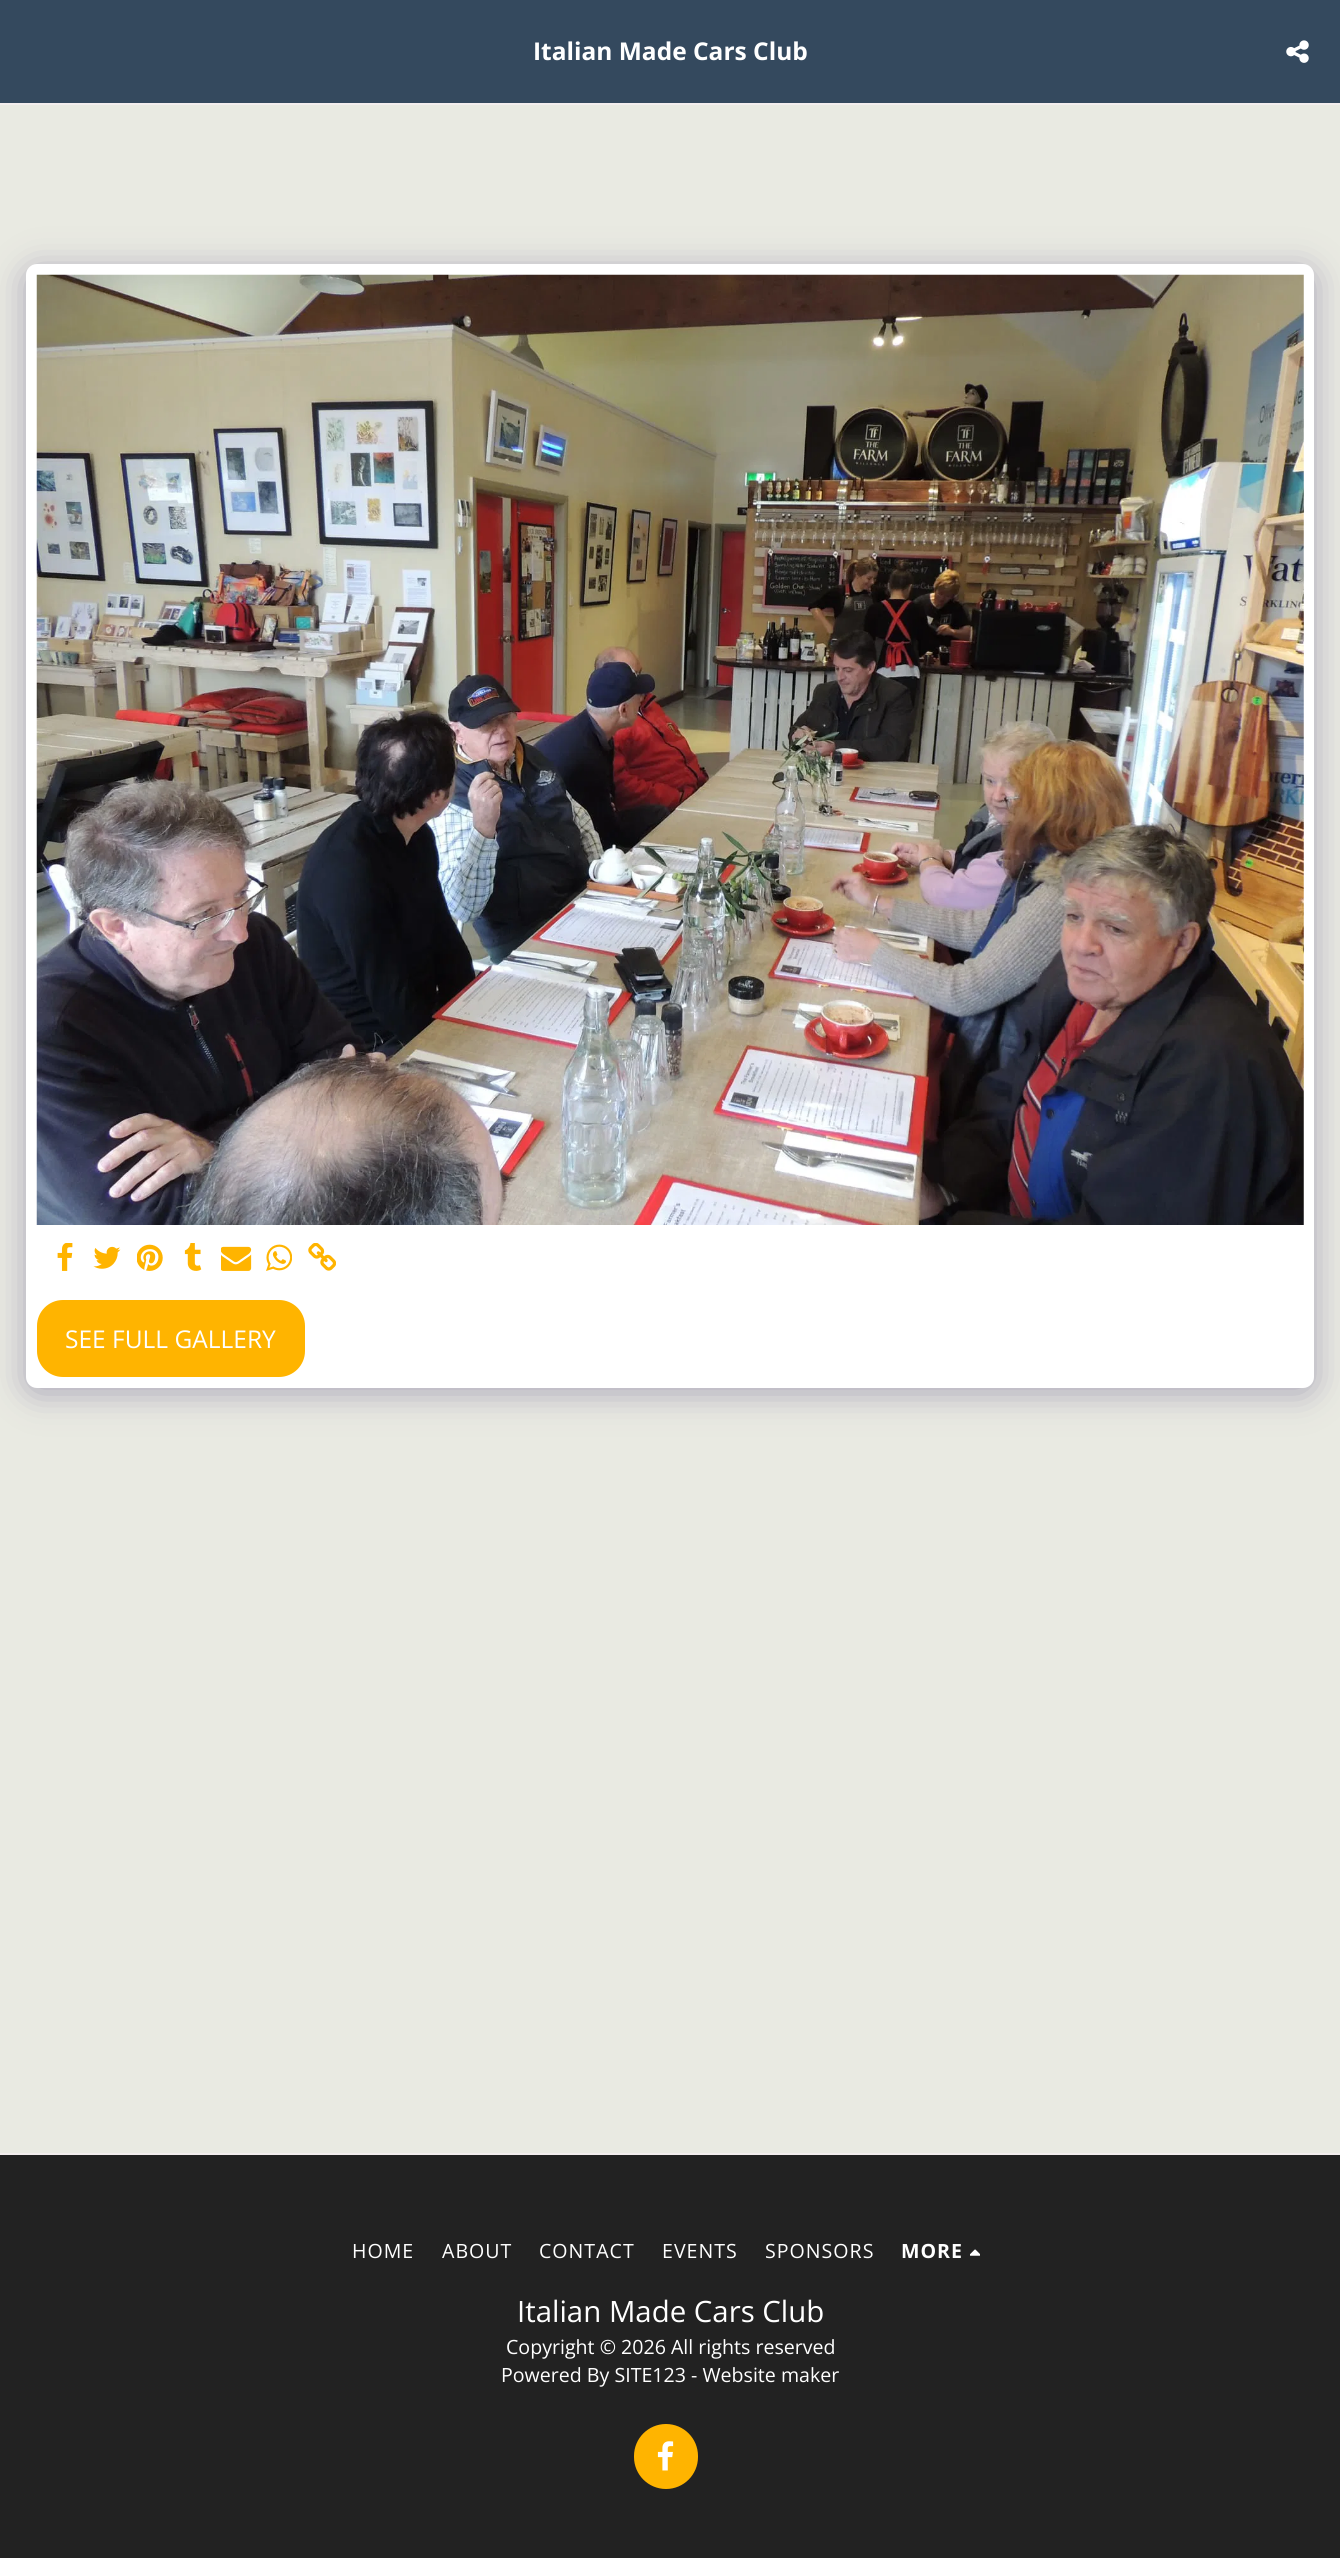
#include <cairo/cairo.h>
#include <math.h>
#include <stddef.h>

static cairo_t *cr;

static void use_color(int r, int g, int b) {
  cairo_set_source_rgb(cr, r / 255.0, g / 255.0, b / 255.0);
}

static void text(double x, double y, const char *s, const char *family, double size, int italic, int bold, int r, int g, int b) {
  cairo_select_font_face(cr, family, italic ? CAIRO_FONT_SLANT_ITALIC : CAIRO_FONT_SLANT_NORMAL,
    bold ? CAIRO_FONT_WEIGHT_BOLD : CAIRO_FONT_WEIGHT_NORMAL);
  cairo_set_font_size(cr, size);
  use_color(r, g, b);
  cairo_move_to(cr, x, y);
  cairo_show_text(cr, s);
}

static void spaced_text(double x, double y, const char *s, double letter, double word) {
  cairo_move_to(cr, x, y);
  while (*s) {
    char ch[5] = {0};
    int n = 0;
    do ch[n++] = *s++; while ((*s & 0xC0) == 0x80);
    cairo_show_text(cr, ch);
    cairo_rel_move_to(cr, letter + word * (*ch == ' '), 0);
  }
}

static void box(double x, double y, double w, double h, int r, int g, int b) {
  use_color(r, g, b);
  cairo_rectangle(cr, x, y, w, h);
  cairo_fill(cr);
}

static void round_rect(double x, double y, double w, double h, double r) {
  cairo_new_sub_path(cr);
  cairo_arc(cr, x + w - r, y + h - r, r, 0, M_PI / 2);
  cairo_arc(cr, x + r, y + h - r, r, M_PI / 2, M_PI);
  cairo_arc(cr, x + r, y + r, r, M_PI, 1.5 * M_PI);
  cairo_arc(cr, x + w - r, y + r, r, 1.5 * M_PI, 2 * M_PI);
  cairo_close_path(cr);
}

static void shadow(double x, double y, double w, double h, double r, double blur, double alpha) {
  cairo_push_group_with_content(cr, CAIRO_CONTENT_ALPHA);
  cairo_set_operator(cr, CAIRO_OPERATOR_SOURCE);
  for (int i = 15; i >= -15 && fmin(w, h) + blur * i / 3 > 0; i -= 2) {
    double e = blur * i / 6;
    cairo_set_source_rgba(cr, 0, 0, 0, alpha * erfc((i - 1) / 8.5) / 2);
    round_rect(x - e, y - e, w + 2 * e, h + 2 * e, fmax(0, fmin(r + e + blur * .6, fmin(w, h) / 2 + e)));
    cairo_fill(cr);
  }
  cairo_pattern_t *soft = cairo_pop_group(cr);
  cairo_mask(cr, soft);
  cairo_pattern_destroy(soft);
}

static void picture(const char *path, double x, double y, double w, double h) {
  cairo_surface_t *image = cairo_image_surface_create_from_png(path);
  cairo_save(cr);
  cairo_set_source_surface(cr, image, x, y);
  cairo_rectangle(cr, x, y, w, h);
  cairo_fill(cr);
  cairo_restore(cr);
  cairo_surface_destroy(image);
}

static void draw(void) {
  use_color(233, 234, 226);
  cairo_paint(cr);
  box(0, 0, 1340, 103, 52, 73, 94);
  box(0, 103, 1340, 2, 243, 238, 238);
  picture("img_01.png", 1286, 40, 23, 23);
  use_color(77, 63, 122);
  shadow(26, 270, 1288, 1123, 11, 17.5, 0.4);
  use_color(255, 255, 255);
  round_rect(26, 264, 1288, 1124, 11);
  cairo_fill(cr);
  picture("img_02.png", 36, 274, 1268, 951);
  picture("img_03.png", 57, 1243, 16, 28);
  picture("img_04.png", 93, 1246, 28, 23);
  picture("img_05.png", 137, 1244, 26, 27);
  picture("img_06.png", 184, 1243, 18, 28);
  picture("img_07.png", 221, 1246, 31, 25);
  picture("img_08.png", 266, 1244, 26, 27);
  picture("img_09.png", 308, 1243, 28, 28);
  use_color(255, 180, 0);
  round_rect(38, 1301, 266, 75, 25);
  cairo_fill_preserve(cr);
  cairo_stroke(cr);
  box(0, 2155, 1340, 403, 34, 34, 34);
  box(0, 2153, 1340, 2, 243, 238, 238);
  picture("img_10.png", 970, 2249, 10, 7);
  use_color(255, 180, 0);
  round_rect(635, 2425, 62, 63, 31);
  cairo_fill_preserve(cr);
  cairo_stroke(cr);
  picture("img_11.png", 657, 2441, 17, 30);
  text(533, 60, "Italian Made Cars Club", "Open Sans", 24.5, 0, 1, 255, 255, 255);
  text(65, 1348, "SEE FULL GALLERY", "Open Sans", 24.5, 0, 0, 255, 255, 255);
  cairo_set_font_size(cr, 19.6);
  spaced_text(352, 2258, "HOME", 1, 0);
  spaced_text(442, 2258, "ABOUT", 1, 0);
  spaced_text(539, 2258, "CONTACT", 1, 0);
  spaced_text(662, 2258, "EVENTS", 1, 0);
  spaced_text(765, 2258, "SPONSORS", 1, 0);
  cairo_select_font_face(cr, "Open Sans", CAIRO_FONT_SLANT_NORMAL, CAIRO_FONT_WEIGHT_BOLD);
  spaced_text(901, 2258, "MORE", 1, 0);
  text(517, 2322, "Italian Made Cars Club", "Open Sans", 29.4, 0, 0, 255, 255, 255);
  text(506, 2354, "Copyright © 2026 All rights reserved", "Open Sans", 19.6, 0, 0, 255, 255, 255);
  text(501, 2382, "Powered By SITE123 - Website maker", "Open Sans", 19.6, 0, 0, 255, 255, 255);
}

int main(void) {
  cairo_surface_t *surface = cairo_image_surface_create(CAIRO_FORMAT_RGB24, 1340, 2558);
  cr = cairo_create(surface);
  cairo_font_options_t *options = cairo_font_options_create();
  cairo_font_options_set_hint_metrics(options, CAIRO_HINT_METRICS_OFF);
  cairo_font_options_set_hint_style(options, CAIRO_HINT_STYLE_NONE);
  cairo_set_font_options(cr, options);
  cairo_set_miter_limit(cr, 4);
  draw();
  cairo_surface_write_to_png(surface, "out.png");
  cairo_font_options_destroy(options);
  cairo_destroy(cr);
  cairo_surface_destroy(surface);
  return 0;
}
